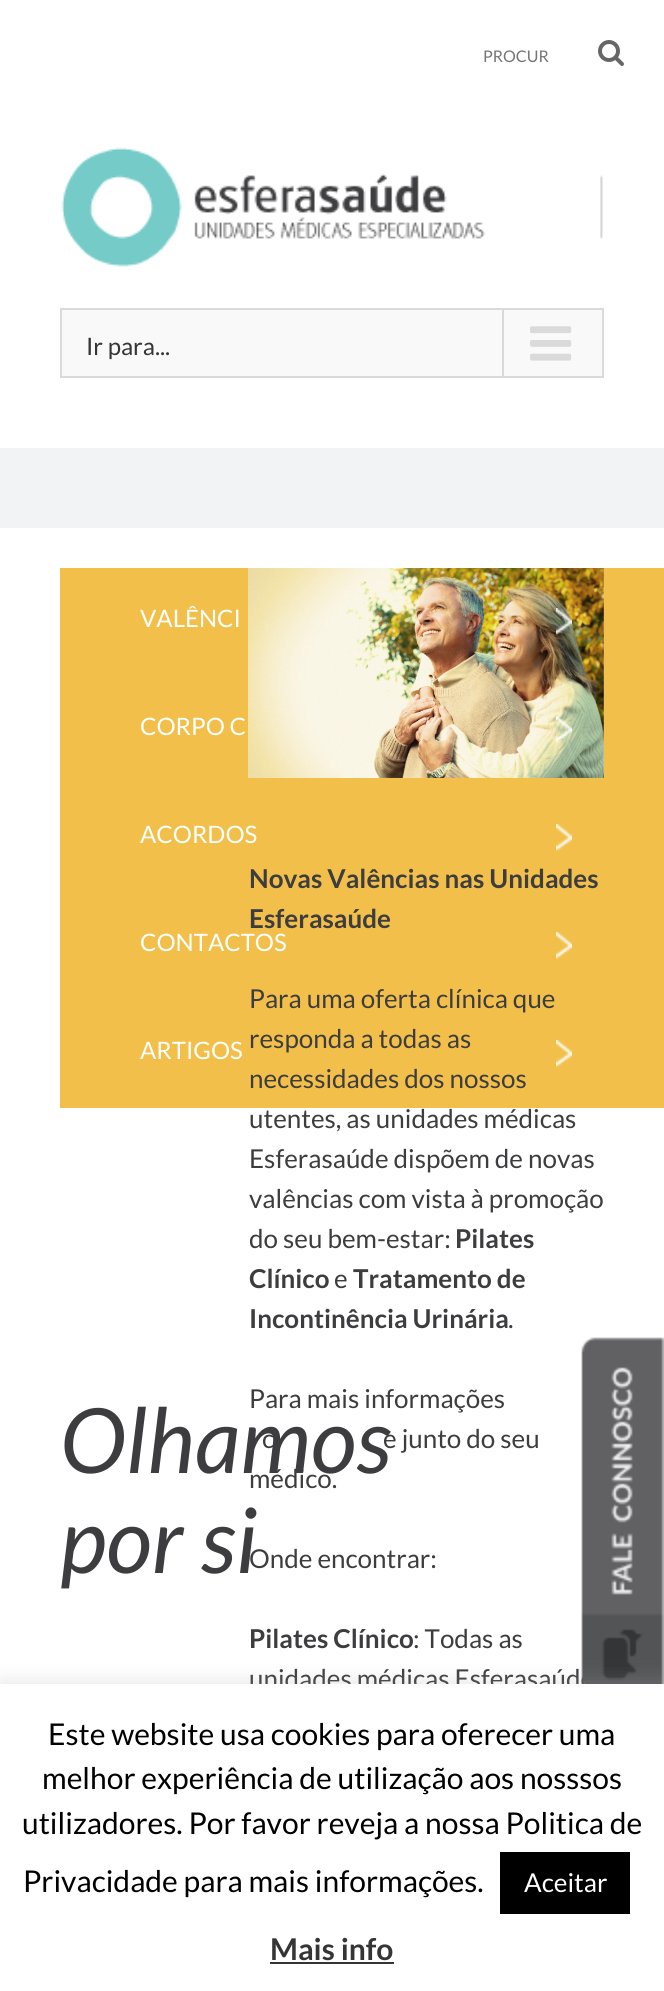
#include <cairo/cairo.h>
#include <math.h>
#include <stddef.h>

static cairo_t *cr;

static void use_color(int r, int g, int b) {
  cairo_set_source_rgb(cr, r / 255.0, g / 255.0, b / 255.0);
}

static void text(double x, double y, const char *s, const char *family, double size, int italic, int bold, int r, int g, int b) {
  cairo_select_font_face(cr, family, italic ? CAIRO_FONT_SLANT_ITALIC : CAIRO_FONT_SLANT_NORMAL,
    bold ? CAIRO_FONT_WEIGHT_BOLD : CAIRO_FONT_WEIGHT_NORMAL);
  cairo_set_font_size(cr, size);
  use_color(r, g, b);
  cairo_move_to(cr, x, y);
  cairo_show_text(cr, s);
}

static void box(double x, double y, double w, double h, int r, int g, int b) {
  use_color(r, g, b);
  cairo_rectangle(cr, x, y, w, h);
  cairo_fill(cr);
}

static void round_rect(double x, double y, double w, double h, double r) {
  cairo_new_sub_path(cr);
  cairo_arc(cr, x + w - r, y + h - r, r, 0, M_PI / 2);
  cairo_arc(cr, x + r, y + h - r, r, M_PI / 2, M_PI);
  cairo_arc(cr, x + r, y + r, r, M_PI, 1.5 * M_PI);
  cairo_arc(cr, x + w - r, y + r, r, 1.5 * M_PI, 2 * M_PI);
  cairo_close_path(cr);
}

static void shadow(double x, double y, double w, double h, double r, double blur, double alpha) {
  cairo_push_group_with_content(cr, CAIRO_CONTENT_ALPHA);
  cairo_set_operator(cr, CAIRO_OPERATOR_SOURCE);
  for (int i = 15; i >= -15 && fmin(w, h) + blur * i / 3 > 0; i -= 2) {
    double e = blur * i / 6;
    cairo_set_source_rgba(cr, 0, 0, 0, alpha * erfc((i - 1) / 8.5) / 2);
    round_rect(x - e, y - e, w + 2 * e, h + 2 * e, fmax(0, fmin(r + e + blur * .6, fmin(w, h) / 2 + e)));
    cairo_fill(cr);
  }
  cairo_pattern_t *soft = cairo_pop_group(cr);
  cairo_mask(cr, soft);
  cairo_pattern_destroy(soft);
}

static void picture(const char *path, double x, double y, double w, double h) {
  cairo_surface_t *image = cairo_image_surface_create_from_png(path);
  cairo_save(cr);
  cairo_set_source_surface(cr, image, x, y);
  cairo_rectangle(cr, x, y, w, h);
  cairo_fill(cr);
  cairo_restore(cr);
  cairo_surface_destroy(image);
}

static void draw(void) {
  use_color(255, 255, 255);
  cairo_paint(cr);
  picture("img_01.png", 598, 40, 26, 26);
  picture("img_02.png", 61, 147, 542, 120);
  use_color(249, 249, 249);
  cairo_rectangle(cr, 61, 309, 542, 68);
  cairo_fill_preserve(cr);
  use_color(218, 218, 218);
  cairo_stroke(cr);
  box(502, 310, 2, 66, 218, 218, 218);
  picture("img_03.png", 530, 326, 42, 35);
  box(0, 448, 664, 80, 242, 243, 244);
  box(60, 568, 604, 540, 242, 191, 75);
  picture("img_07.png", 248, 568, 356, 210);
  picture("img_04.png", 556, 608, 16, 27);
  picture("img_05.png", 556, 716, 16, 27);
  picture("img_06.png", 556, 824, 16, 27);
  picture("img_06.png", 556, 932, 16, 27);
  picture("img_06.png", 556, 1040, 16, 27);
  text(483, 62, "PROCUR", "Lato", 16, 0, 0, 117, 117, 117);
  text(86, 355, "Ir para...", "Lato", 24, 0, 0, 53, 53, 53);
  text(140, 627, "VALÊNCI", "Lato", 24, 0, 0, 255, 255, 255);
  text(140, 735, "CORPO C", "Lato", 24, 0, 0, 255, 255, 255);
  text(140, 843, "ACORDOS", "Lato", 24, 0, 0, 255, 255, 255);
  text(140, 951, "CONTACTOS", "Lato", 24, 0, 0, 255, 255, 255);
  text(140, 1059, "ARTIGOS", "Lato", 24, 0, 0, 255, 255, 255);
  text(60, 1473, "Olhamos", "Lato", 90, 1, 0, 61, 61, 63);
  text(60, 1573, "por si", "Lato", 90, 1, 0, 61, 61, 63);
  text(249, 888, "Novas Valências nas Unidades", "Lato", 26, 0, 1, 61, 61, 63);
  text(249, 928, "Esferasaúde", "Lato", 26, 0, 1, 61, 61, 63);
  text(249, 1008, "Para uma oferta clínica que", "Lato", 26, 0, 0, 61, 61, 63);
  text(249, 1048, "responda a todas as", "Lato", 26, 0, 0, 61, 61, 63);
  text(249, 1088, "necessidades dos nossos", "Lato", 26, 0, 0, 61, 61, 63);
  text(249, 1128, "utentes, as unidades médicas", "Lato", 26, 0, 0, 61, 61, 63);
  text(249, 1168, "Esferasaúde dispõem de novas", "Lato", 26, 0, 0, 61, 61, 63);
  text(249, 1208, "valências com vista à promoção", "Lato", 26, 0, 0, 61, 61, 63);
  text(249, 1248, "do seu bem-estar:", "Lato", 26, 0, 0, 61, 61, 63);
  text(455, 1248, "Pilates", "Lato", 26, 0, 1, 61, 61, 63);
  text(249, 1288, "Clínico", "Lato", 26, 0, 1, 61, 61, 63);
  text(334, 1288, "e", "Lato", 26, 0, 0, 61, 61, 63);
  text(353, 1288, "Tratamento de", "Lato", 26, 0, 1, 61, 61, 63);
  text(249, 1328, "Incontinência Urinária", "Lato", 26, 0, 1, 61, 61, 63);
  text(508, 1328, ".", "Lato", 26, 0, 0, 61, 61, 63);
  text(249, 1408, "Para mais informações", "Lato", 26, 0, 0, 61, 61, 63);
  text(262, 1448, "c", "Lato", 26, 0, 0, 61, 61, 63);
  text(383, 1448, "e junto do seu", "Lato", 26, 0, 0, 61, 61, 63);
  text(249, 1488, "médico.", "Lato", 26, 0, 0, 61, 61, 63);
  text(249, 1568, "Onde encontrar:", "Lato", 26, 0, 0, 61, 61, 63);
  text(249, 1648, "Pilates Clínico", "Lato", 26, 0, 1, 61, 61, 63);
  text(413, 1648, ": Todas as", "Lato", 26, 0, 0, 61, 61, 63);
  text(249, 1688, "unidades médicas Esferasaúde", "Lato", 26, 0, 0, 61, 61, 63);
  picture("img_08.png", 581, 1337, 83, 347);
  use_color(172, 171, 171);
  shadow(0, 1682, 664, 308, 0, 10, 0.3);
  box(0, 1684, 664, 307, 255, 255, 255);
  text(48, 1745, "Este website usa cookies para oferecer uma", "Lato", 30, 0, 0, 0, 0, 0);
  text(42, 1789, "melhor experiência de utilização aos nosssos", "Lato", 30, 0, 0, 0, 0, 0);
  text(22, 1834, "utilizadores. Por favor reveja a nossa Politica de", "Lato", 30, 0, 0, 0, 0, 0);
  text(23, 1892, "Privacidade para mais informações.", "Lato", 30, 0, 0, 0, 0, 0);
  box(500, 1852, 130, 62, 0, 0, 0);
  text(524, 1892, "Aceitar", "Lato", 26, 0, 0, 255, 255, 255);
  text(270, 1960, "Mais info", "Lato", 30, 0, 1, 53, 53, 53);
  box(270, 1962, 124, 2, 53, 53, 53);
}

int main(void) {
  cairo_surface_t *surface = cairo_image_surface_create(CAIRO_FORMAT_RGB24, 664, 1991);
  cr = cairo_create(surface);
  cairo_font_options_t *options = cairo_font_options_create();
  cairo_font_options_set_hint_metrics(options, CAIRO_HINT_METRICS_OFF);
  cairo_font_options_set_hint_style(options, CAIRO_HINT_STYLE_NONE);
  cairo_set_font_options(cr, options);
  cairo_set_miter_limit(cr, 4);
  draw();
  cairo_surface_write_to_png(surface, "out.png");
  cairo_font_options_destroy(options);
  cairo_destroy(cr);
  cairo_surface_destroy(surface);
  return 0;
}
